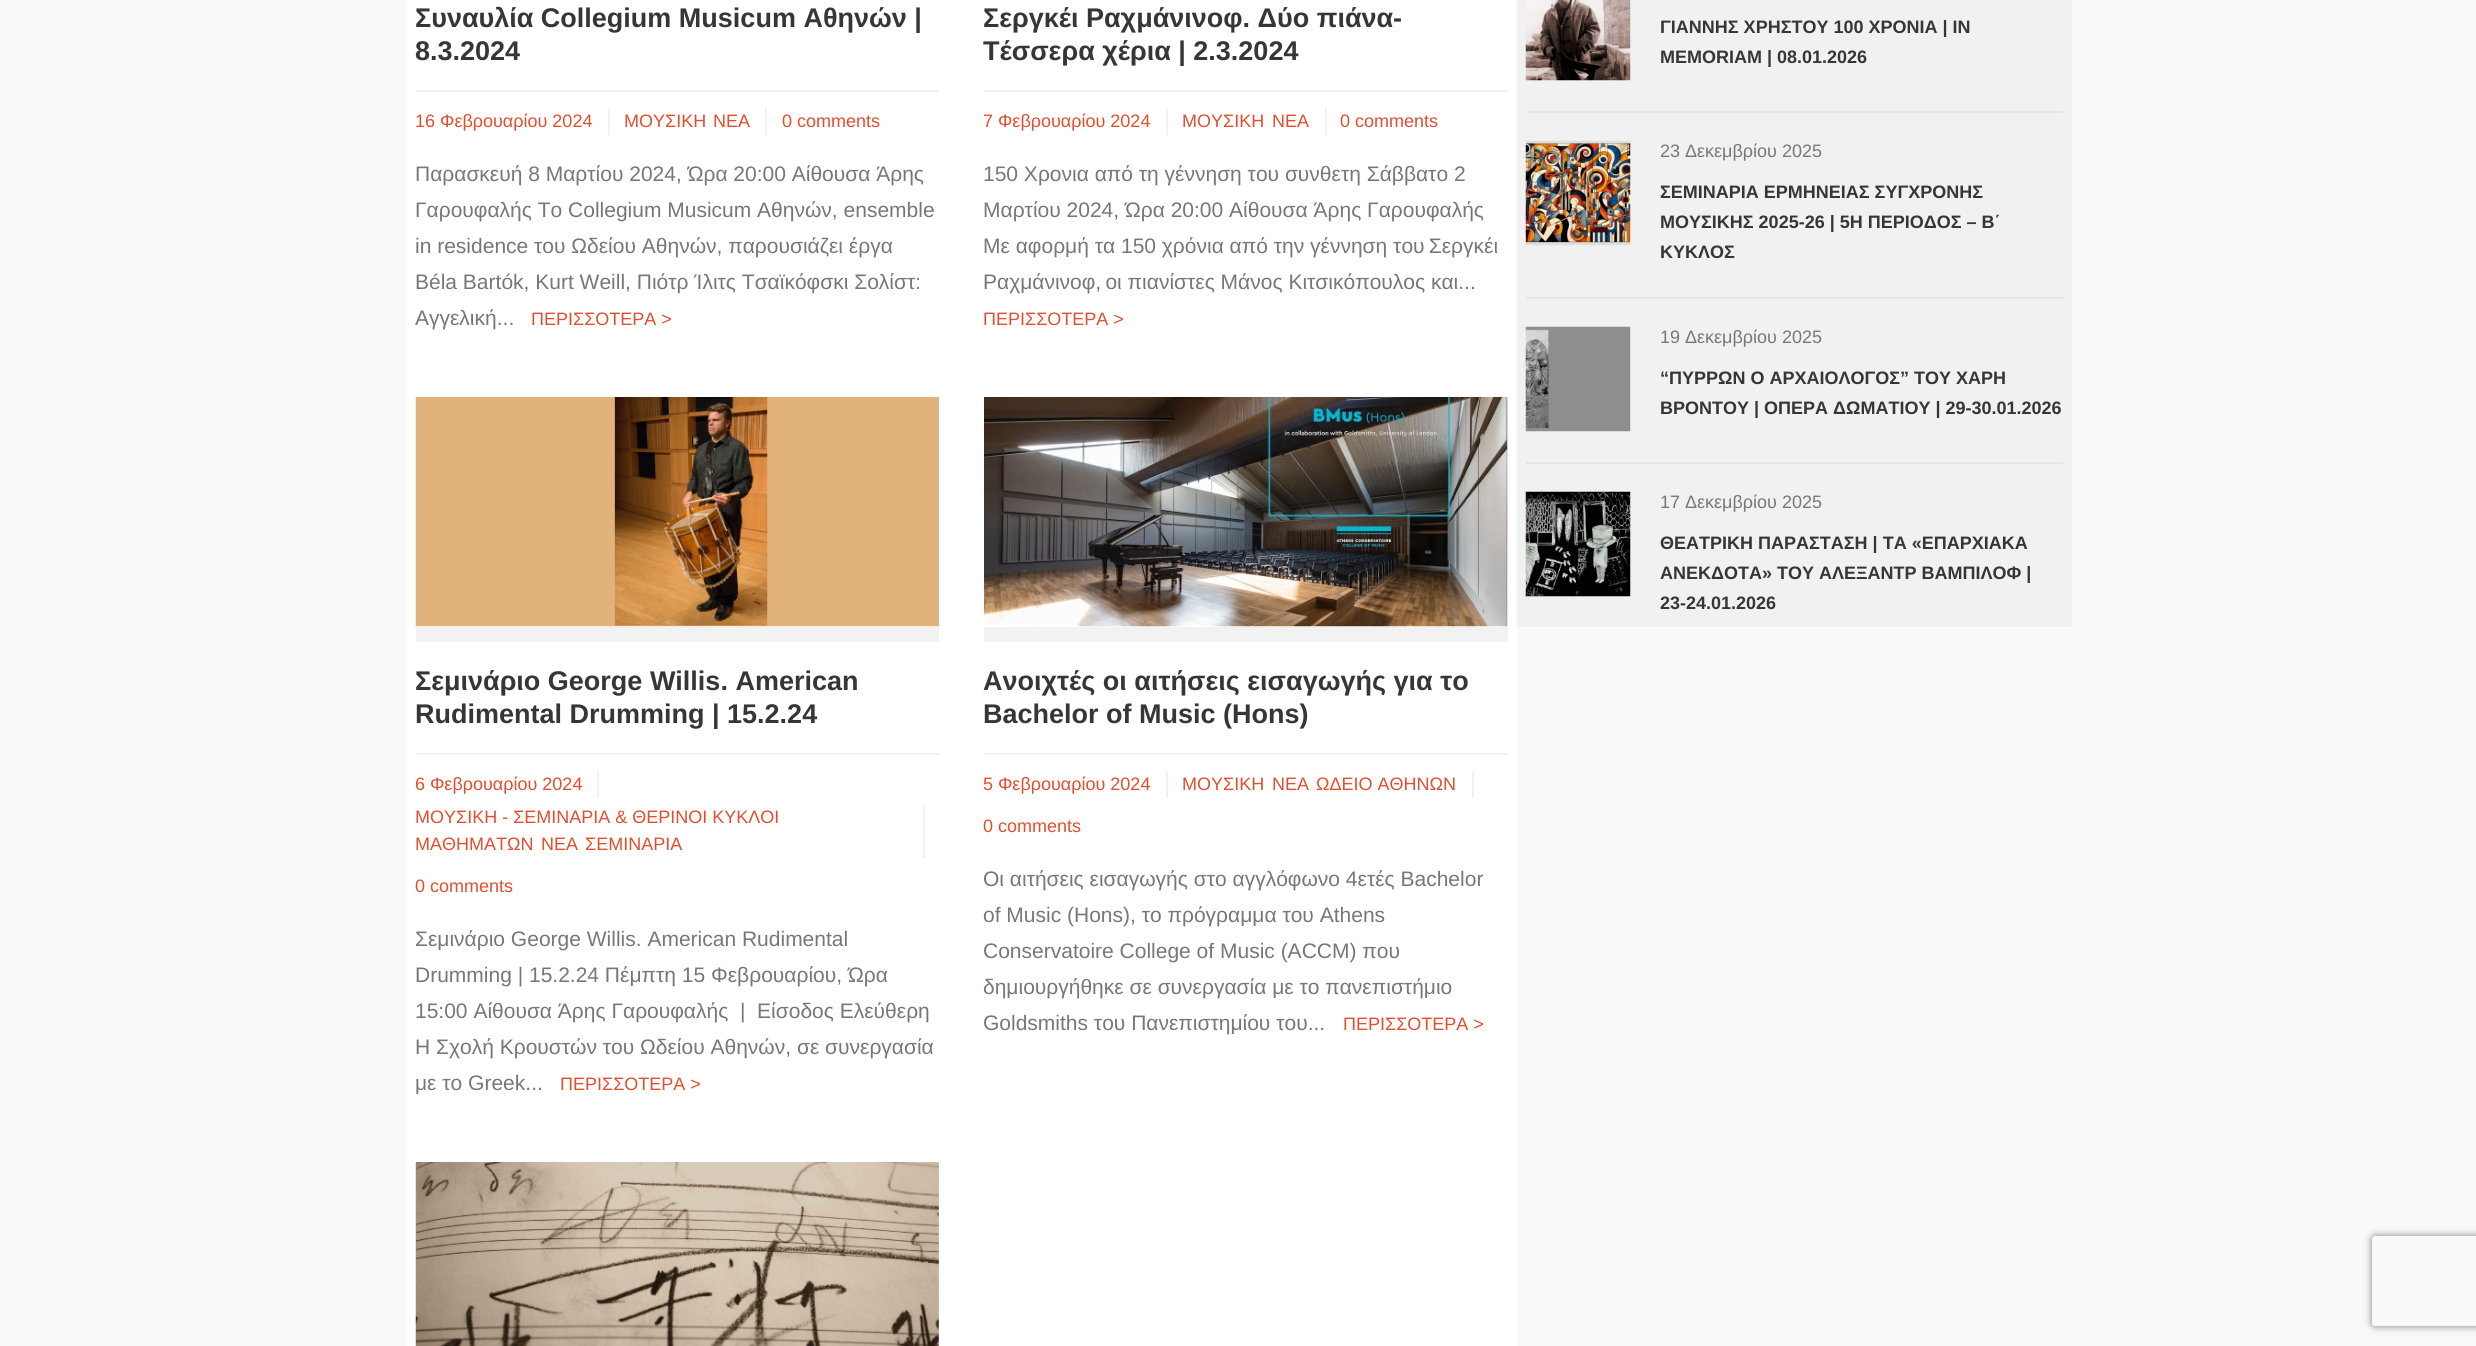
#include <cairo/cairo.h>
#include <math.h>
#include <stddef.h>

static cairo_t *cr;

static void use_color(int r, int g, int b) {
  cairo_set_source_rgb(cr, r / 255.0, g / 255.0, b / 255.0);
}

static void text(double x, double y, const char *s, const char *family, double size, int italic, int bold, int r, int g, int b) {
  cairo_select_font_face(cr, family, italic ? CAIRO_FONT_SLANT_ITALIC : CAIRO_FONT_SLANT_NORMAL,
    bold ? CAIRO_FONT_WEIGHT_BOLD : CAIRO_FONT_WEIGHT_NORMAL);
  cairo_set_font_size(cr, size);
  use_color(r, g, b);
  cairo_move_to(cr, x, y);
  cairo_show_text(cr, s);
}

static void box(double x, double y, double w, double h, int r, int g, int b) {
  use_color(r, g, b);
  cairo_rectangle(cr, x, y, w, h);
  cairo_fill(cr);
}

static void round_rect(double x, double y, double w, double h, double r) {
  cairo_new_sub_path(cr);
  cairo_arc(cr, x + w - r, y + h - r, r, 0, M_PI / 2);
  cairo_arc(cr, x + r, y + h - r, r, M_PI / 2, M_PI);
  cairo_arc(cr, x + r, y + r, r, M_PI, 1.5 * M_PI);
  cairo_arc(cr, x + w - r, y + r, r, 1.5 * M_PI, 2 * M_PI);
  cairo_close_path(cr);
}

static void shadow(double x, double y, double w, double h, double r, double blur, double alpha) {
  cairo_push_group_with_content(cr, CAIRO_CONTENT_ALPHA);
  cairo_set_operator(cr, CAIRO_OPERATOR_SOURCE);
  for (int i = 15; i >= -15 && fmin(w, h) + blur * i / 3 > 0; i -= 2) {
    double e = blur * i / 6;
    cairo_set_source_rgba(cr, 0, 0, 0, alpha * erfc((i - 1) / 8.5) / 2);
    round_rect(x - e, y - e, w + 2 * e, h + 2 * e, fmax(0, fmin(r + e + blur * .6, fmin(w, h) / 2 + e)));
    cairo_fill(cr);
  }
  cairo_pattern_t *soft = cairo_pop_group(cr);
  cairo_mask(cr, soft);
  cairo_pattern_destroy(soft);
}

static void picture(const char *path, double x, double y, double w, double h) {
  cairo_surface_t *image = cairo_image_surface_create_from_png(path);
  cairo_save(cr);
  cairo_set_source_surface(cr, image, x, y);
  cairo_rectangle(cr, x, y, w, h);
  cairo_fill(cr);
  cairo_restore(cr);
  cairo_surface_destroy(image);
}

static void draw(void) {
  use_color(249, 249, 249);
  cairo_paint(cr);
  box(407, 0, 1110, 1346, 255, 255, 255);
  box(416, 90, 523, 2, 242, 242, 242);
  box(608, 108, 2, 27, 242, 242, 242);
  box(765, 108, 2, 27, 242, 242, 242);
  box(984, 90, 524, 2, 242, 242, 242);
  box(1166, 108, 2, 27, 242, 242, 242);
  box(1325, 108, 2, 27, 242, 242, 242);
  box(416, 627, 523, 15, 242, 242, 242);
  picture("img_01.png", 415, 397, 524, 230);
  box(416, 753, 523, 2, 242, 242, 242);
  box(597, 771, 2, 27, 242, 242, 242);
  box(923, 804, 2, 54, 242, 242, 242);
  box(984, 627, 524, 15, 242, 242, 242);
  picture("img_02.png", 984, 397, 524, 230);
  box(984, 753, 524, 2, 242, 242, 242);
  box(1166, 771, 2, 27, 242, 242, 242);
  box(1472, 771, 2, 27, 242, 242, 242);
  picture("img_03.png", 415, 1162, 524, 184);
  box(1517, 0, 555, 627, 241, 241, 241);
  box(1526, 111, 537, 2, 229, 229, 229);
  picture("img_04.png", 1525, 0, 106, 81);
  box(1526, 297, 537, 2, 229, 229, 229);
  picture("img_05.png", 1525, 140, 106, 106);
  box(1526, 462, 537, 2, 229, 229, 229);
  picture("img_06.png", 1525, 326, 106, 106);
  picture("img_07.png", 1525, 491, 106, 106);
  cairo_save(cr);
  cairo_set_fill_rule(cr, CAIRO_FILL_RULE_EVEN_ODD);
  cairo_new_path(cr);
  cairo_move_to(cr, 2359, 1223);
  cairo_line_to(cr, 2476, 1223);
  cairo_line_to(cr, 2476, 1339);
  cairo_line_to(cr, 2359, 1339);
  cairo_close_path(cr);
  cairo_move_to(cr, 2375, 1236);
  cairo_line_to(cr, 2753, 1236);
  cairo_curve_to(cr, 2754.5, 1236, 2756, 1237.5, 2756, 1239);
  cairo_line_to(cr, 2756, 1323);
  cairo_curve_to(cr, 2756, 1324.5, 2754.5, 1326, 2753, 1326);
  cairo_line_to(cr, 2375, 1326);
  cairo_curve_to(cr, 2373.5, 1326, 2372, 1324.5, 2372, 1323);
  cairo_line_to(cr, 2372, 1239);
  cairo_curve_to(cr, 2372, 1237.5, 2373.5, 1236, 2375, 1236);
  cairo_close_path(cr);
  cairo_clip(cr);
  use_color(128, 128, 128);
  shadow(2372, 1236, 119, 90, 3, 4, 1);
  cairo_restore(cr);
  text(415, 27, "Συναυλία Collegium Musicum Αθηνών |", "Liberation Sans", 27, 0, 1, 54, 54, 54);
  text(415, 60, "8.3.2024", "Liberation Sans", 27, 0, 1, 54, 54, 54);
  text(415, 127, "16 Φεβρουαρίου 2024", "Liberation Sans", 18, 0, 0, 225, 79, 46);
  text(624, 127, "ΜΟΥΣΙΚΗ", "Liberation Sans", 18, 0, 0, 225, 79, 46);
  text(713, 127, "ΝΕΑ", "Liberation Sans", 18, 0, 0, 225, 79, 46);
  text(782, 127, "0 comments", "Liberation Sans", 18, 0, 0, 225, 79, 46);
  text(415, 181, "Παρασκευή 8 Μαρτίου 2024, Ώρα 20:00 Αίθουσα Άρης", "Liberation Sans", 21, 0, 0, 119, 119, 119);
  text(415, 217, "Γαρουφαλής Το Collegium Musicum Αθηνών, ensemble", "Liberation Sans", 21, 0, 0, 119, 119, 119);
  text(415, 253, "in residence του Ωδείου Αθηνών, παρουσιάζει έργα", "Liberation Sans", 21, 0, 0, 119, 119, 119);
  text(415, 289, "Béla Bartók, Kurt Weill, Πιότρ Ίλιτς Τσαϊκόφσκι Σολίστ:", "Liberation Sans", 21, 0, 0, 119, 119, 119);
  text(415, 325, "Αγγελική...", "Liberation Sans", 21, 0, 0, 119, 119, 119);
  text(531, 325, "ΠΕΡΙΣΣΟΤΕΡΑ >", "Liberation Sans", 18, 0, 0, 225, 79, 46);
  text(983, 27, "Σεργκέι Ραχμάνινοφ. Δύο πιάνα-", "Liberation Sans", 27, 0, 1, 54, 54, 54);
  text(983, 60, "Τέσσερα χέρια | 2.3.2024", "Liberation Sans", 27, 0, 1, 54, 54, 54);
  text(983, 127, "7 Φεβρουαρίου 2024", "Liberation Sans", 18, 0, 0, 225, 79, 46);
  text(1182, 127, "ΜΟΥΣΙΚΗ", "Liberation Sans", 18, 0, 0, 225, 79, 46);
  text(1272, 127, "ΝΕΑ", "Liberation Sans", 18, 0, 0, 225, 79, 46);
  text(1340, 127, "0 comments", "Liberation Sans", 18, 0, 0, 225, 79, 46);
  text(983, 181, "150 Χρονια από τη γέννηση του συνθετη Σάββατο 2", "Liberation Sans", 21, 0, 0, 119, 119, 119);
  text(983, 217, "Μαρτίου 2024, Ώρα 20:00 Αίθουσα Άρης Γαρουφαλής", "Liberation Sans", 21, 0, 0, 119, 119, 119);
  text(983, 253, "Με αφορμή τα 150 χρόνια από την γέννηση του Σεργκέι", "Liberation Sans", 21, 0, 0, 119, 119, 119);
  text(983, 289, "Ραχμάνινοφ, oι πιανίστες Μάνος Κιτσικόπουλος και...", "Liberation Sans", 21, 0, 0, 119, 119, 119);
  text(983, 325, "ΠΕΡΙΣΣΟΤΕΡΑ >", "Liberation Sans", 18, 0, 0, 225, 79, 46);
  text(415, 690, "Σεμινάριο George Willis. American", "Liberation Sans", 27, 0, 1, 54, 54, 54);
  text(415, 723, "Rudimental Drumming | 15.2.24", "Liberation Sans", 27, 0, 1, 54, 54, 54);
  text(415, 790, "6 Φεβρουαρίου 2024", "Liberation Sans", 18, 0, 0, 225, 79, 46);
  text(415, 823, "ΜΟΥΣΙΚΗ - ΣΕΜΙΝΑΡΙΑ & ΘΕΡΙΝΟΙ ΚΥΚΛΟΙ", "Liberation Sans", 18, 0, 0, 225, 79, 46);
  text(415, 850, "ΜΑΘΗΜΑΤΩΝ", "Liberation Sans", 18, 0, 0, 225, 79, 46);
  text(541, 850, "ΝΕΑ", "Liberation Sans", 18, 0, 0, 225, 79, 46);
  text(585, 850, "ΣΕΜΙΝΑΡΙΑ", "Liberation Sans", 18, 0, 0, 225, 79, 46);
  text(415, 892, "0 comments", "Liberation Sans", 18, 0, 0, 225, 79, 46);
  text(415, 946, "Σεμινάριο George Willis. American Rudimental", "Liberation Sans", 21, 0, 0, 119, 119, 119);
  text(415, 982, "Drumming | 15.2.24 Πέμπτη 15 Φεβρουαρίου, Ώρα", "Liberation Sans", 21, 0, 0, 119, 119, 119);
  text(415, 1018, "15:00 Αίθουσα Άρης Γαρουφαλής  |  Είσοδος Ελεύθερη", "Liberation Sans", 21, 0, 0, 119, 119, 119);
  text(415, 1054, "Η Σχολή Κρουστών του Ωδείου Αθηνών, σε συνεργασία", "Liberation Sans", 21, 0, 0, 119, 119, 119);
  text(415, 1090, "με το Greek...", "Liberation Sans", 21, 0, 0, 119, 119, 119);
  text(560, 1090, "ΠΕΡΙΣΣΟΤΕΡΑ >", "Liberation Sans", 18, 0, 0, 225, 79, 46);
  text(983, 690, "Ανοιχτές οι αιτήσεις εισαγωγής για το", "Liberation Sans", 27, 0, 1, 54, 54, 54);
  text(983, 723, "Bachelor of Music (Hons)", "Liberation Sans", 27, 0, 1, 54, 54, 54);
  text(983, 790, "5 Φεβρουαρίου 2024", "Liberation Sans", 18, 0, 0, 225, 79, 46);
  text(1182, 790, "ΜΟΥΣΙΚΗ", "Liberation Sans", 18, 0, 0, 225, 79, 46);
  text(1272, 790, "ΝΕΑ", "Liberation Sans", 18, 0, 0, 225, 79, 46);
  text(1316, 790, "ΩΔΕΙΟ ΑΘΗΝΩΝ", "Liberation Sans", 18, 0, 0, 225, 79, 46);
  text(983, 832, "0 comments", "Liberation Sans", 18, 0, 0, 225, 79, 46);
  text(983, 886, "Οι αιτήσεις εισαγωγής στο αγγλόφωνο 4ετές Bachelor", "Liberation Sans", 21, 0, 0, 119, 119, 119);
  text(983, 922, "of Music (Hons), το πρόγραμμα του Athens", "Liberation Sans", 21, 0, 0, 119, 119, 119);
  text(983, 958, "Conservatoire College of Music (ACCM) που", "Liberation Sans", 21, 0, 0, 119, 119, 119);
  text(983, 994, "δημιουργήθηκε σε συνεργασία με το πανεπιστήμιο", "Liberation Sans", 21, 0, 0, 119, 119, 119);
  text(983, 1030, "Goldsmiths του Πανεπιστημίου του...", "Liberation Sans", 21, 0, 0, 119, 119, 119);
  text(1343, 1030, "ΠΕΡΙΣΣΟΤΕΡΑ >", "Liberation Sans", 18, 0, 0, 225, 79, 46);
  text(1660, 33, "ΓΙΑΝΝΗΣ ΧΡΗΣΤΟΥ 100 ΧΡΟΝΙΑ | ΙN", "Liberation Sans", 18, 0, 1, 54, 54, 54);
  text(1660, 63, "MEMORIAM | 08.01.2026", "Liberation Sans", 18, 0, 1, 54, 54, 54);
  text(1660, 157, "23 Δεκεμβρίου 2025", "Liberation Sans", 18, 0, 0, 119, 119, 119);
  text(1660, 198, "ΣΕΜΙΝΑΡΙΑ ΕΡΜΗΝΕΙΑΣ ΣΥΓΧΡΟΝΗΣ", "Liberation Sans", 18, 0, 1, 54, 54, 54);
  text(1660, 228, "ΜΟΥΣΙΚΗΣ 2025-26 | 5Η ΠΕΡΙΟΔΟΣ – Β΄", "Liberation Sans", 18, 0, 1, 54, 54, 54);
  text(1660, 258, "ΚΥΚΛΟΣ", "Liberation Sans", 18, 0, 1, 54, 54, 54);
  text(1660, 343, "19 Δεκεμβρίου 2025", "Liberation Sans", 18, 0, 0, 119, 119, 119);
  text(1660, 384, "“ΠΥΡΡΩΝ Ο ΑΡΧΑΙΟΛΟΓΟΣ” ΤΟΥ ΧΑΡΗ", "Liberation Sans", 18, 0, 1, 54, 54, 54);
  text(1660, 414, "ΒΡΟΝΤΟΥ | ΟΠΕΡΑ ΔΩΜΑΤΙΟΥ | 29-30.01.2026", "Liberation Sans", 18, 0, 1, 54, 54, 54);
  text(1660, 508, "17 Δεκεμβρίου 2025", "Liberation Sans", 18, 0, 0, 119, 119, 119);
  text(1660, 549, "ΘΕΑΤΡΙΚΗ ΠΑΡΑΣΤΑΣΗ | ΤΑ «ΕΠΑΡΧΙΑΚΑ", "Liberation Sans", 18, 0, 1, 54, 54, 54);
  text(1660, 579, "ΑΝΕΚΔΟΤΑ» ΤΟΥ ΑΛΕΞΑΝΤΡ ΒΑΜΠΙΛΟΦ |", "Liberation Sans", 18, 0, 1, 54, 54, 54);
  text(1660, 609, "23-24.01.2026", "Liberation Sans", 18, 0, 1, 54, 54, 54);
}

int main(void) {
  cairo_surface_t *surface = cairo_image_surface_create(CAIRO_FORMAT_RGB24, 2476, 1346);
  cr = cairo_create(surface);
  cairo_font_options_t *options = cairo_font_options_create();
  cairo_font_options_set_hint_metrics(options, CAIRO_HINT_METRICS_OFF);
  cairo_font_options_set_hint_style(options, CAIRO_HINT_STYLE_NONE);
  cairo_set_font_options(cr, options);
  cairo_set_miter_limit(cr, 4);
  draw();
  cairo_surface_write_to_png(surface, "out.png");
  cairo_font_options_destroy(options);
  cairo_destroy(cr);
  cairo_surface_destroy(surface);
  return 0;
}
